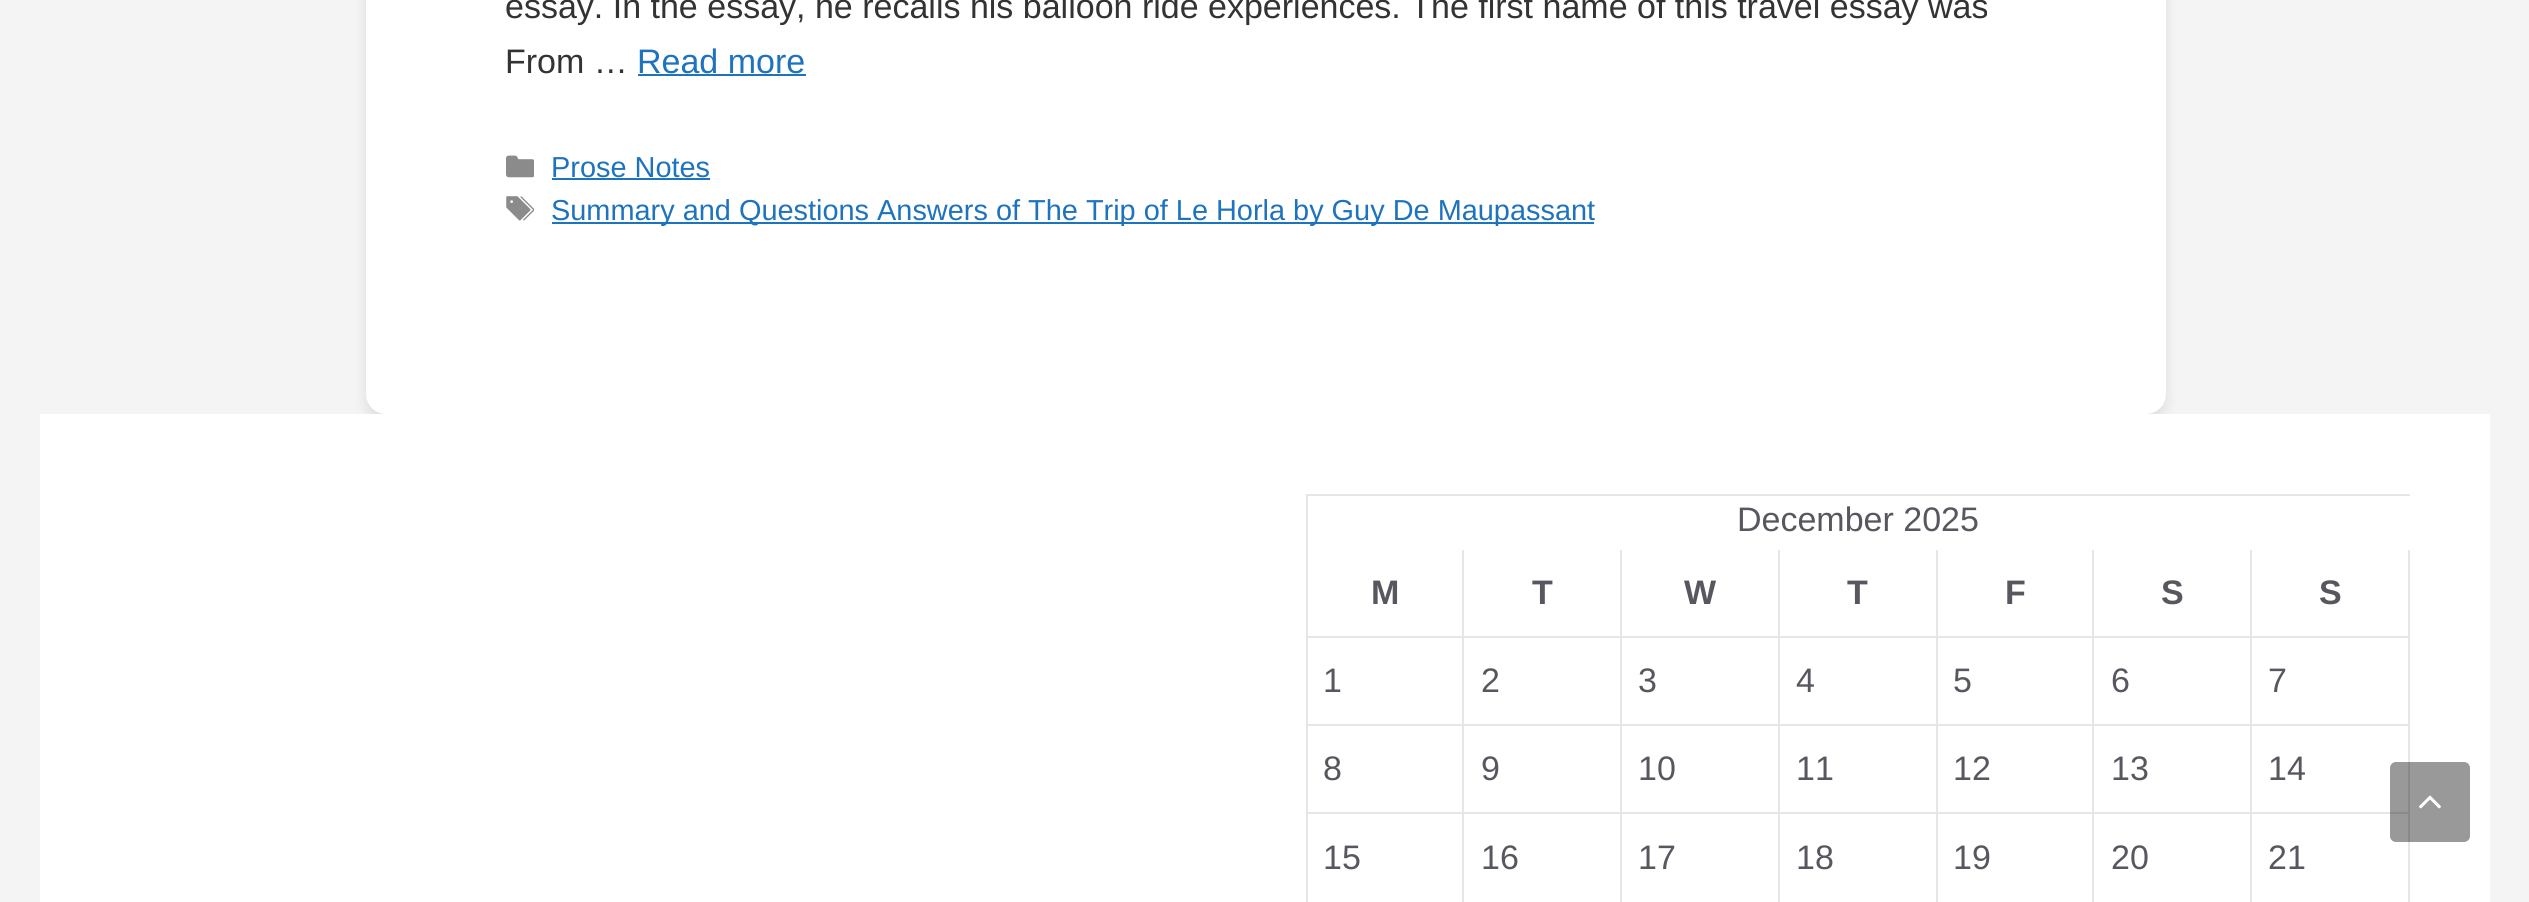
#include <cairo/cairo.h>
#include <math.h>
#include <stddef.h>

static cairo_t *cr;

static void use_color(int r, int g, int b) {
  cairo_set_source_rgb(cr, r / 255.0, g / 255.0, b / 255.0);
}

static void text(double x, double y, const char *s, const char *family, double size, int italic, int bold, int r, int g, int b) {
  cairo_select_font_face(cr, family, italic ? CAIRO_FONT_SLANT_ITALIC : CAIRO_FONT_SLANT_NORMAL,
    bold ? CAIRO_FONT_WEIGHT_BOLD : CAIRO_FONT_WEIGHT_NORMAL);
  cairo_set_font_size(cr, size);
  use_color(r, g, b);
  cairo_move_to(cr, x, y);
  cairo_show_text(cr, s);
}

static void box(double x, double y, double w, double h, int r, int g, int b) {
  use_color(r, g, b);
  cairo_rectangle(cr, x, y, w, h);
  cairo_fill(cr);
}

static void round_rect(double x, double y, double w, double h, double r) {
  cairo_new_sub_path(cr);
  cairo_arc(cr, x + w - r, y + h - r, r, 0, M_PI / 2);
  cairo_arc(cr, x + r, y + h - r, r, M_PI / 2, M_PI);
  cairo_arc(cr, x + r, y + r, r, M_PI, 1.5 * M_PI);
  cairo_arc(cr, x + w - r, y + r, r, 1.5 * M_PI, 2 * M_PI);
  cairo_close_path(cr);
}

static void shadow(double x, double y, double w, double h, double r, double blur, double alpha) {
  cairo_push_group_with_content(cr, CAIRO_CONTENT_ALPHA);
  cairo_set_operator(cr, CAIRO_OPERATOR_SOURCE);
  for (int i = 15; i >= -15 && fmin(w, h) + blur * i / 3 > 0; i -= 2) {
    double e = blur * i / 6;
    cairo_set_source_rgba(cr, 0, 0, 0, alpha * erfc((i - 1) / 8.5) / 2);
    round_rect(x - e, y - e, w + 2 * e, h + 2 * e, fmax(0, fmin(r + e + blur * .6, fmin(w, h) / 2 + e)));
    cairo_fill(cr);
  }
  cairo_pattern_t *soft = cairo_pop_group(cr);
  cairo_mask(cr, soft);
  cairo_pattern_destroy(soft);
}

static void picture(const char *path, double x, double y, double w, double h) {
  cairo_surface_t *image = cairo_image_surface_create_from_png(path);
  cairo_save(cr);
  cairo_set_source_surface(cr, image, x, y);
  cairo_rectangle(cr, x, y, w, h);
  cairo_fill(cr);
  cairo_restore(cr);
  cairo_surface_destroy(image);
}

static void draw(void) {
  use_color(244, 244, 244);
  cairo_paint(cr);
  use_color(0, 0, 0);
  shadow(366, -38, 1800, 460, 20, 6, 0.1);
  use_color(255, 255, 255);
  round_rect(366, -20, 1800, 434, 20);
  cairo_fill(cr);
  box(638, 74, 168, 2, 30, 115, 190);
  picture("img_01.png", 506, 155, 28, 23);
  box(552, 178, 158, 2, 30, 115, 190);
  picture("img_02.png", 506, 196, 28, 25);
  box(552, 222, 1042, 2, 30, 115, 190);
  box(40, 414, 2450, 488, 255, 255, 255);
  use_color(230, 230, 230);
  cairo_new_path(cr);
  cairo_move_to(cr, 1306, 494);
  cairo_line_to(cr, 2410, 494);
  cairo_line_to(cr, 2410, 496);
  cairo_line_to(cr, 1308, 496);
  cairo_close_path(cr);
  cairo_fill(cr);
  cairo_set_source_rgba(cr, 0, 0, 0, 0.1);
  cairo_new_path(cr);
  cairo_move_to(cr, 1306, 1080);
  cairo_line_to(cr, 1306, 494);
  cairo_line_to(cr, 1308, 496);
  cairo_line_to(cr, 1308, 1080);
  cairo_close_path(cr);
  cairo_fill(cr);
  use_color(230, 230, 230);
  cairo_new_path(cr);
  cairo_move_to(cr, 1464, 550);
  cairo_line_to(cr, 1464, 638);
  cairo_line_to(cr, 1462, 636);
  cairo_line_to(cr, 1462, 550);
  cairo_close_path(cr);
  cairo_fill(cr);
  cairo_set_source_rgba(cr, 0, 0, 0, 0.1);
  cairo_new_path(cr);
  cairo_move_to(cr, 1464, 638);
  cairo_line_to(cr, 1308, 638);
  cairo_line_to(cr, 1308, 636);
  cairo_line_to(cr, 1462, 636);
  cairo_close_path(cr);
  cairo_fill(cr);
  use_color(230, 230, 230);
  cairo_new_path(cr);
  cairo_move_to(cr, 1622, 550);
  cairo_line_to(cr, 1622, 638);
  cairo_line_to(cr, 1620, 636);
  cairo_line_to(cr, 1620, 550);
  cairo_close_path(cr);
  cairo_fill(cr);
  cairo_set_source_rgba(cr, 0, 0, 0, 0.1);
  cairo_new_path(cr);
  cairo_move_to(cr, 1622, 638);
  cairo_line_to(cr, 1464, 638);
  cairo_line_to(cr, 1464, 636);
  cairo_line_to(cr, 1620, 636);
  cairo_close_path(cr);
  cairo_fill(cr);
  use_color(230, 230, 230);
  cairo_new_path(cr);
  cairo_move_to(cr, 1780, 550);
  cairo_line_to(cr, 1780, 638);
  cairo_line_to(cr, 1778, 636);
  cairo_line_to(cr, 1778, 550);
  cairo_close_path(cr);
  cairo_fill(cr);
  cairo_set_source_rgba(cr, 0, 0, 0, 0.1);
  cairo_new_path(cr);
  cairo_move_to(cr, 1780, 638);
  cairo_line_to(cr, 1622, 638);
  cairo_line_to(cr, 1622, 636);
  cairo_line_to(cr, 1778, 636);
  cairo_close_path(cr);
  cairo_fill(cr);
  use_color(230, 230, 230);
  cairo_new_path(cr);
  cairo_move_to(cr, 1938, 550);
  cairo_line_to(cr, 1938, 638);
  cairo_line_to(cr, 1936, 636);
  cairo_line_to(cr, 1936, 550);
  cairo_close_path(cr);
  cairo_fill(cr);
  cairo_set_source_rgba(cr, 0, 0, 0, 0.1);
  cairo_new_path(cr);
  cairo_move_to(cr, 1938, 638);
  cairo_line_to(cr, 1780, 638);
  cairo_line_to(cr, 1780, 636);
  cairo_line_to(cr, 1936, 636);
  cairo_close_path(cr);
  cairo_fill(cr);
  use_color(230, 230, 230);
  cairo_new_path(cr);
  cairo_move_to(cr, 2094, 550);
  cairo_line_to(cr, 2094, 638);
  cairo_line_to(cr, 2092, 636);
  cairo_line_to(cr, 2092, 550);
  cairo_close_path(cr);
  cairo_fill(cr);
  cairo_set_source_rgba(cr, 0, 0, 0, 0.1);
  cairo_new_path(cr);
  cairo_move_to(cr, 2094, 638);
  cairo_line_to(cr, 1938, 638);
  cairo_line_to(cr, 1938, 636);
  cairo_line_to(cr, 2092, 636);
  cairo_close_path(cr);
  cairo_fill(cr);
  use_color(230, 230, 230);
  cairo_new_path(cr);
  cairo_move_to(cr, 2252, 550);
  cairo_line_to(cr, 2252, 638);
  cairo_line_to(cr, 2250, 636);
  cairo_line_to(cr, 2250, 550);
  cairo_close_path(cr);
  cairo_fill(cr);
  cairo_set_source_rgba(cr, 0, 0, 0, 0.1);
  cairo_new_path(cr);
  cairo_move_to(cr, 2252, 638);
  cairo_line_to(cr, 2094, 638);
  cairo_line_to(cr, 2094, 636);
  cairo_line_to(cr, 2250, 636);
  cairo_close_path(cr);
  cairo_fill(cr);
  use_color(230, 230, 230);
  cairo_new_path(cr);
  cairo_move_to(cr, 2410, 550);
  cairo_line_to(cr, 2410, 638);
  cairo_line_to(cr, 2408, 636);
  cairo_line_to(cr, 2408, 550);
  cairo_close_path(cr);
  cairo_fill(cr);
  cairo_set_source_rgba(cr, 0, 0, 0, 0.1);
  cairo_new_path(cr);
  cairo_move_to(cr, 2410, 638);
  cairo_line_to(cr, 2252, 638);
  cairo_line_to(cr, 2252, 636);
  cairo_line_to(cr, 2408, 636);
  cairo_close_path(cr);
  cairo_fill(cr);
  use_color(230, 230, 230);
  cairo_new_path(cr);
  cairo_move_to(cr, 1464, 638);
  cairo_line_to(cr, 1464, 726);
  cairo_line_to(cr, 1462, 724);
  cairo_line_to(cr, 1462, 638);
  cairo_close_path(cr);
  cairo_fill(cr);
  cairo_set_source_rgba(cr, 0, 0, 0, 0.1);
  cairo_new_path(cr);
  cairo_move_to(cr, 1464, 726);
  cairo_line_to(cr, 1308, 726);
  cairo_line_to(cr, 1308, 724);
  cairo_line_to(cr, 1462, 724);
  cairo_close_path(cr);
  cairo_fill(cr);
  use_color(230, 230, 230);
  cairo_new_path(cr);
  cairo_move_to(cr, 1622, 638);
  cairo_line_to(cr, 1622, 726);
  cairo_line_to(cr, 1620, 724);
  cairo_line_to(cr, 1620, 638);
  cairo_close_path(cr);
  cairo_fill(cr);
  cairo_set_source_rgba(cr, 0, 0, 0, 0.1);
  cairo_new_path(cr);
  cairo_move_to(cr, 1622, 726);
  cairo_line_to(cr, 1464, 726);
  cairo_line_to(cr, 1464, 724);
  cairo_line_to(cr, 1620, 724);
  cairo_close_path(cr);
  cairo_fill(cr);
  use_color(230, 230, 230);
  cairo_new_path(cr);
  cairo_move_to(cr, 1780, 638);
  cairo_line_to(cr, 1780, 726);
  cairo_line_to(cr, 1778, 724);
  cairo_line_to(cr, 1778, 638);
  cairo_close_path(cr);
  cairo_fill(cr);
  cairo_set_source_rgba(cr, 0, 0, 0, 0.1);
  cairo_new_path(cr);
  cairo_move_to(cr, 1780, 726);
  cairo_line_to(cr, 1622, 726);
  cairo_line_to(cr, 1622, 724);
  cairo_line_to(cr, 1778, 724);
  cairo_close_path(cr);
  cairo_fill(cr);
  use_color(230, 230, 230);
  cairo_new_path(cr);
  cairo_move_to(cr, 1938, 638);
  cairo_line_to(cr, 1938, 726);
  cairo_line_to(cr, 1936, 724);
  cairo_line_to(cr, 1936, 638);
  cairo_close_path(cr);
  cairo_fill(cr);
  cairo_set_source_rgba(cr, 0, 0, 0, 0.1);
  cairo_new_path(cr);
  cairo_move_to(cr, 1938, 726);
  cairo_line_to(cr, 1780, 726);
  cairo_line_to(cr, 1780, 724);
  cairo_line_to(cr, 1936, 724);
  cairo_close_path(cr);
  cairo_fill(cr);
  use_color(230, 230, 230);
  cairo_new_path(cr);
  cairo_move_to(cr, 2094, 638);
  cairo_line_to(cr, 2094, 726);
  cairo_line_to(cr, 2092, 724);
  cairo_line_to(cr, 2092, 638);
  cairo_close_path(cr);
  cairo_fill(cr);
  cairo_set_source_rgba(cr, 0, 0, 0, 0.1);
  cairo_new_path(cr);
  cairo_move_to(cr, 2094, 726);
  cairo_line_to(cr, 1938, 726);
  cairo_line_to(cr, 1938, 724);
  cairo_line_to(cr, 2092, 724);
  cairo_close_path(cr);
  cairo_fill(cr);
  use_color(230, 230, 230);
  cairo_new_path(cr);
  cairo_move_to(cr, 2252, 638);
  cairo_line_to(cr, 2252, 726);
  cairo_line_to(cr, 2250, 724);
  cairo_line_to(cr, 2250, 638);
  cairo_close_path(cr);
  cairo_fill(cr);
  cairo_set_source_rgba(cr, 0, 0, 0, 0.1);
  cairo_new_path(cr);
  cairo_move_to(cr, 2252, 726);
  cairo_line_to(cr, 2094, 726);
  cairo_line_to(cr, 2094, 724);
  cairo_line_to(cr, 2250, 724);
  cairo_close_path(cr);
  cairo_fill(cr);
  use_color(230, 230, 230);
  cairo_new_path(cr);
  cairo_move_to(cr, 2410, 638);
  cairo_line_to(cr, 2410, 726);
  cairo_line_to(cr, 2408, 724);
  cairo_line_to(cr, 2408, 638);
  cairo_close_path(cr);
  cairo_fill(cr);
  cairo_set_source_rgba(cr, 0, 0, 0, 0.1);
  cairo_new_path(cr);
  cairo_move_to(cr, 2410, 726);
  cairo_line_to(cr, 2252, 726);
  cairo_line_to(cr, 2252, 724);
  cairo_line_to(cr, 2408, 724);
  cairo_close_path(cr);
  cairo_fill(cr);
  use_color(230, 230, 230);
  cairo_new_path(cr);
  cairo_move_to(cr, 1464, 726);
  cairo_line_to(cr, 1464, 814);
  cairo_line_to(cr, 1462, 812);
  cairo_line_to(cr, 1462, 726);
  cairo_close_path(cr);
  cairo_fill(cr);
  cairo_set_source_rgba(cr, 0, 0, 0, 0.1);
  cairo_new_path(cr);
  cairo_move_to(cr, 1464, 814);
  cairo_line_to(cr, 1308, 814);
  cairo_line_to(cr, 1308, 812);
  cairo_line_to(cr, 1462, 812);
  cairo_close_path(cr);
  cairo_fill(cr);
  use_color(230, 230, 230);
  cairo_new_path(cr);
  cairo_move_to(cr, 1622, 726);
  cairo_line_to(cr, 1622, 814);
  cairo_line_to(cr, 1620, 812);
  cairo_line_to(cr, 1620, 726);
  cairo_close_path(cr);
  cairo_fill(cr);
  cairo_set_source_rgba(cr, 0, 0, 0, 0.1);
  cairo_new_path(cr);
  cairo_move_to(cr, 1622, 814);
  cairo_line_to(cr, 1464, 814);
  cairo_line_to(cr, 1464, 812);
  cairo_line_to(cr, 1620, 812);
  cairo_close_path(cr);
  cairo_fill(cr);
  use_color(230, 230, 230);
  cairo_new_path(cr);
  cairo_move_to(cr, 1780, 726);
  cairo_line_to(cr, 1780, 814);
  cairo_line_to(cr, 1778, 812);
  cairo_line_to(cr, 1778, 726);
  cairo_close_path(cr);
  cairo_fill(cr);
  cairo_set_source_rgba(cr, 0, 0, 0, 0.1);
  cairo_new_path(cr);
  cairo_move_to(cr, 1780, 814);
  cairo_line_to(cr, 1622, 814);
  cairo_line_to(cr, 1622, 812);
  cairo_line_to(cr, 1778, 812);
  cairo_close_path(cr);
  cairo_fill(cr);
  use_color(230, 230, 230);
  cairo_new_path(cr);
  cairo_move_to(cr, 1938, 726);
  cairo_line_to(cr, 1938, 814);
  cairo_line_to(cr, 1936, 812);
  cairo_line_to(cr, 1936, 726);
  cairo_close_path(cr);
  cairo_fill(cr);
  cairo_set_source_rgba(cr, 0, 0, 0, 0.1);
  cairo_new_path(cr);
  cairo_move_to(cr, 1938, 814);
  cairo_line_to(cr, 1780, 814);
  cairo_line_to(cr, 1780, 812);
  cairo_line_to(cr, 1936, 812);
  cairo_close_path(cr);
  cairo_fill(cr);
  use_color(230, 230, 230);
  cairo_new_path(cr);
  cairo_move_to(cr, 2094, 726);
  cairo_line_to(cr, 2094, 814);
  cairo_line_to(cr, 2092, 812);
  cairo_line_to(cr, 2092, 726);
  cairo_close_path(cr);
  cairo_fill(cr);
  cairo_set_source_rgba(cr, 0, 0, 0, 0.1);
  cairo_new_path(cr);
  cairo_move_to(cr, 2094, 814);
  cairo_line_to(cr, 1938, 814);
  cairo_line_to(cr, 1938, 812);
  cairo_line_to(cr, 2092, 812);
  cairo_close_path(cr);
  cairo_fill(cr);
  use_color(230, 230, 230);
  cairo_new_path(cr);
  cairo_move_to(cr, 2252, 726);
  cairo_line_to(cr, 2252, 814);
  cairo_line_to(cr, 2250, 812);
  cairo_line_to(cr, 2250, 726);
  cairo_close_path(cr);
  cairo_fill(cr);
  cairo_set_source_rgba(cr, 0, 0, 0, 0.1);
  cairo_new_path(cr);
  cairo_move_to(cr, 2252, 814);
  cairo_line_to(cr, 2094, 814);
  cairo_line_to(cr, 2094, 812);
  cairo_line_to(cr, 2250, 812);
  cairo_close_path(cr);
  cairo_fill(cr);
  use_color(230, 230, 230);
  cairo_new_path(cr);
  cairo_move_to(cr, 2410, 726);
  cairo_line_to(cr, 2410, 814);
  cairo_line_to(cr, 2408, 812);
  cairo_line_to(cr, 2408, 726);
  cairo_close_path(cr);
  cairo_fill(cr);
  cairo_set_source_rgba(cr, 0, 0, 0, 0.1);
  cairo_new_path(cr);
  cairo_move_to(cr, 2410, 814);
  cairo_line_to(cr, 2252, 814);
  cairo_line_to(cr, 2252, 812);
  cairo_line_to(cr, 2408, 812);
  cairo_close_path(cr);
  cairo_fill(cr);
  use_color(230, 230, 230);
  cairo_new_path(cr);
  cairo_move_to(cr, 1464, 814);
  cairo_line_to(cr, 1464, 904);
  cairo_line_to(cr, 1462, 902);
  cairo_line_to(cr, 1462, 814);
  cairo_close_path(cr);
  cairo_fill(cr);
  cairo_new_path(cr);
  cairo_move_to(cr, 1622, 814);
  cairo_line_to(cr, 1622, 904);
  cairo_line_to(cr, 1620, 902);
  cairo_line_to(cr, 1620, 814);
  cairo_close_path(cr);
  cairo_fill(cr);
  cairo_new_path(cr);
  cairo_move_to(cr, 1780, 814);
  cairo_line_to(cr, 1780, 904);
  cairo_line_to(cr, 1778, 902);
  cairo_line_to(cr, 1778, 814);
  cairo_close_path(cr);
  cairo_fill(cr);
  cairo_new_path(cr);
  cairo_move_to(cr, 1938, 814);
  cairo_line_to(cr, 1938, 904);
  cairo_line_to(cr, 1936, 902);
  cairo_line_to(cr, 1936, 814);
  cairo_close_path(cr);
  cairo_fill(cr);
  cairo_new_path(cr);
  cairo_move_to(cr, 2094, 814);
  cairo_line_to(cr, 2094, 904);
  cairo_line_to(cr, 2092, 902);
  cairo_line_to(cr, 2092, 814);
  cairo_close_path(cr);
  cairo_fill(cr);
  cairo_new_path(cr);
  cairo_move_to(cr, 2252, 814);
  cairo_line_to(cr, 2252, 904);
  cairo_line_to(cr, 2250, 902);
  cairo_line_to(cr, 2250, 814);
  cairo_close_path(cr);
  cairo_fill(cr);
  cairo_new_path(cr);
  cairo_move_to(cr, 2410, 814);
  cairo_line_to(cr, 2410, 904);
  cairo_line_to(cr, 2408, 902);
  cairo_line_to(cr, 2408, 814);
  cairo_close_path(cr);
  cairo_fill(cr);
  cairo_set_source_rgba(cr, 0, 0, 0, 0.4);
  round_rect(2390, 762, 80, 80, 6);
  cairo_fill(cr);
  picture("img_03.png", 2419, 795, 22, 14);
  text(505, 18, "essay. In the essay, he recalls his balloon ride experiences. The first name of this travel essay was", "Liberation Sans", 34, 0, 0, 51, 51, 51);
  text(505, 73, "From …", "Liberation Sans", 34, 0, 0, 51, 51, 51);
  text(637, 73, "Read more", "Liberation Sans", 34, 0, 0, 30, 115, 190);
  text(551, 177, "Prose Notes", "Liberation Sans", 28.9, 0, 0, 30, 115, 190);
  text(551, 220, "Summary and Questions Answers of The Trip of Le Horla by Guy De Maupassant", "Liberation Sans", 28.9, 0, 0, 30, 115, 190);
  text(1737, 531, "December 2025", "Liberation Sans", 34, 0, 0, 87, 87, 96);
  text(1371, 604, "M", "Liberation Sans", 34, 0, 1, 87, 87, 96);
  text(1532, 604, "T", "Liberation Sans", 34, 0, 1, 87, 87, 96);
  text(1684, 604, "W", "Liberation Sans", 34, 0, 1, 87, 87, 96);
  text(1847, 604, "T", "Liberation Sans", 34, 0, 1, 87, 87, 96);
  text(2005, 604, "F", "Liberation Sans", 34, 0, 1, 87, 87, 96);
  text(2161, 604, "S", "Liberation Sans", 34, 0, 1, 87, 87, 96);
  text(2319, 604, "S", "Liberation Sans", 34, 0, 1, 87, 87, 96);
  text(1323, 692, "1", "Liberation Sans", 34, 0, 0, 87, 87, 96);
  text(1481, 692, "2", "Liberation Sans", 34, 0, 0, 87, 87, 96);
  text(1638, 692, "3", "Liberation Sans", 34, 0, 0, 87, 87, 96);
  text(1796, 692, "4", "Liberation Sans", 34, 0, 0, 87, 87, 96);
  text(1953, 692, "5", "Liberation Sans", 34, 0, 0, 87, 87, 96);
  text(2111, 692, "6", "Liberation Sans", 34, 0, 0, 87, 87, 96);
  text(2268, 692, "7", "Liberation Sans", 34, 0, 0, 87, 87, 96);
  text(1323, 780, "8", "Liberation Sans", 34, 0, 0, 87, 87, 96);
  text(1481, 780, "9", "Liberation Sans", 34, 0, 0, 87, 87, 96);
  text(1638, 780, "10", "Liberation Sans", 34, 0, 0, 87, 87, 96);
  text(1796, 780, "11", "Liberation Sans", 34, 0, 0, 87, 87, 96);
  text(1953, 780, "12", "Liberation Sans", 34, 0, 0, 87, 87, 96);
  text(2111, 780, "13", "Liberation Sans", 34, 0, 0, 87, 87, 96);
  text(2268, 780, "14", "Liberation Sans", 34, 0, 0, 87, 87, 96);
  text(1323, 869, "15", "Liberation Sans", 34, 0, 0, 87, 87, 96);
  text(1481, 869, "16", "Liberation Sans", 34, 0, 0, 87, 87, 96);
  text(1638, 869, "17", "Liberation Sans", 34, 0, 0, 87, 87, 96);
  text(1796, 869, "18", "Liberation Sans", 34, 0, 0, 87, 87, 96);
  text(1953, 869, "19", "Liberation Sans", 34, 0, 0, 87, 87, 96);
  text(2111, 869, "20", "Liberation Sans", 34, 0, 0, 87, 87, 96);
  text(2268, 869, "21", "Liberation Sans", 34, 0, 0, 87, 87, 96);
}

int main(void) {
  cairo_surface_t *surface = cairo_image_surface_create(CAIRO_FORMAT_RGB24, 2529, 902);
  cr = cairo_create(surface);
  cairo_font_options_t *options = cairo_font_options_create();
  cairo_font_options_set_hint_metrics(options, CAIRO_HINT_METRICS_OFF);
  cairo_font_options_set_hint_style(options, CAIRO_HINT_STYLE_NONE);
  cairo_set_font_options(cr, options);
  cairo_set_miter_limit(cr, 4);
  draw();
  cairo_surface_write_to_png(surface, "out.png");
  cairo_font_options_destroy(options);
  cairo_destroy(cr);
  cairo_surface_destroy(surface);
  return 0;
}
